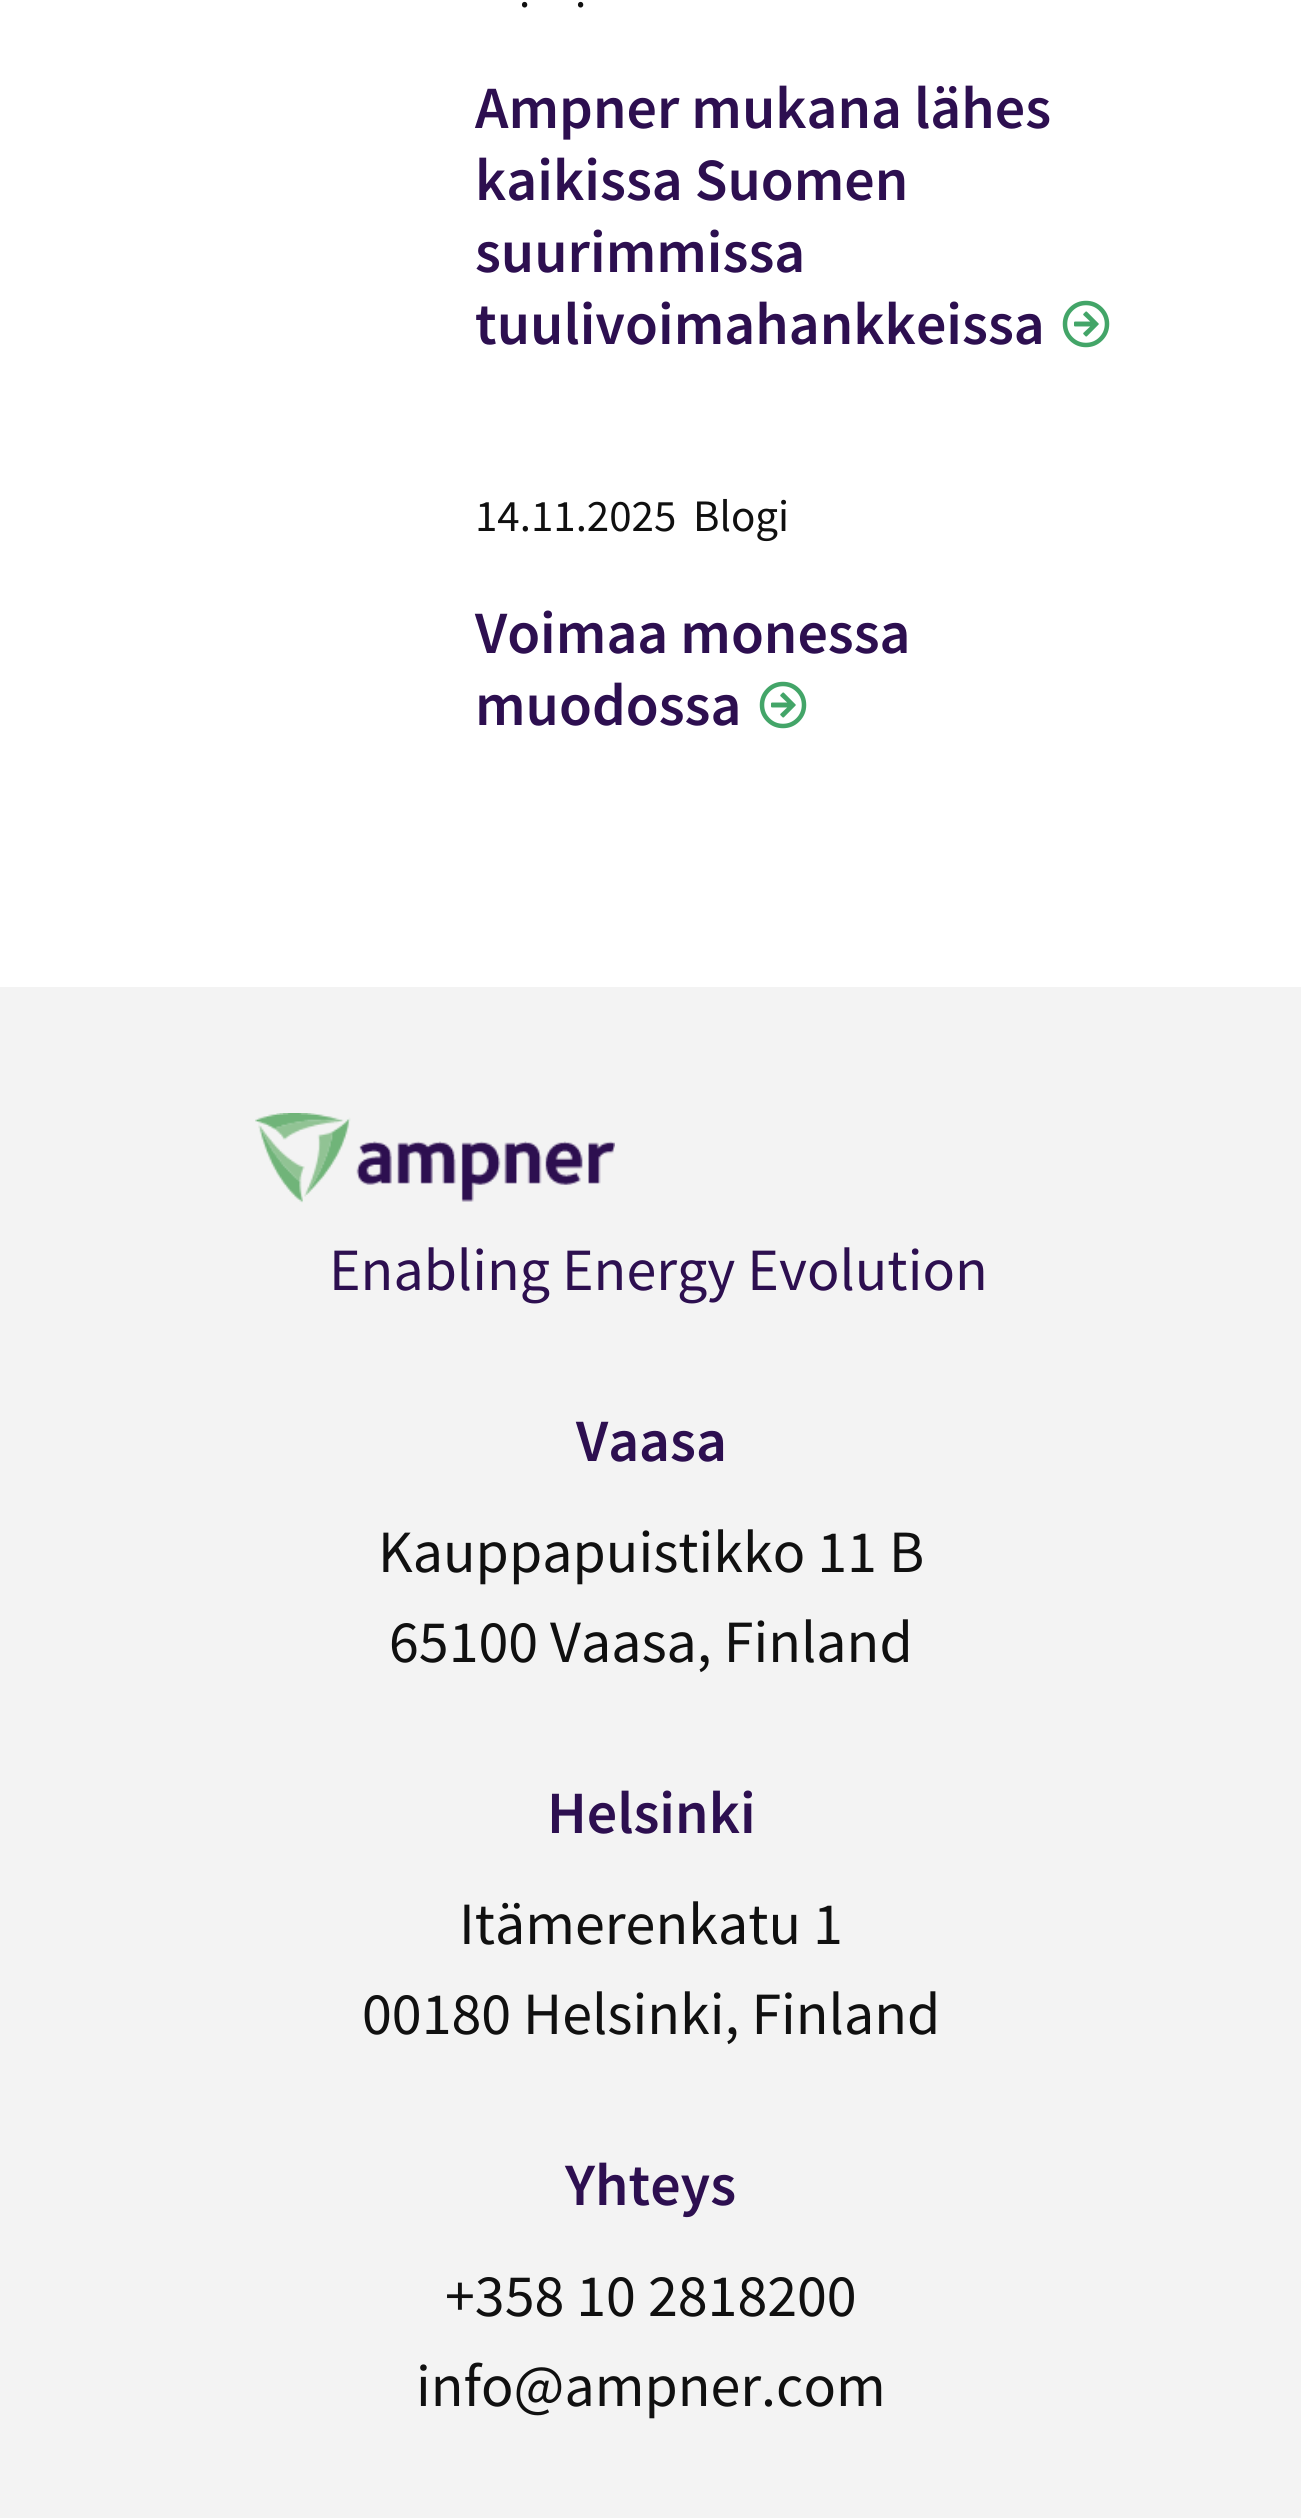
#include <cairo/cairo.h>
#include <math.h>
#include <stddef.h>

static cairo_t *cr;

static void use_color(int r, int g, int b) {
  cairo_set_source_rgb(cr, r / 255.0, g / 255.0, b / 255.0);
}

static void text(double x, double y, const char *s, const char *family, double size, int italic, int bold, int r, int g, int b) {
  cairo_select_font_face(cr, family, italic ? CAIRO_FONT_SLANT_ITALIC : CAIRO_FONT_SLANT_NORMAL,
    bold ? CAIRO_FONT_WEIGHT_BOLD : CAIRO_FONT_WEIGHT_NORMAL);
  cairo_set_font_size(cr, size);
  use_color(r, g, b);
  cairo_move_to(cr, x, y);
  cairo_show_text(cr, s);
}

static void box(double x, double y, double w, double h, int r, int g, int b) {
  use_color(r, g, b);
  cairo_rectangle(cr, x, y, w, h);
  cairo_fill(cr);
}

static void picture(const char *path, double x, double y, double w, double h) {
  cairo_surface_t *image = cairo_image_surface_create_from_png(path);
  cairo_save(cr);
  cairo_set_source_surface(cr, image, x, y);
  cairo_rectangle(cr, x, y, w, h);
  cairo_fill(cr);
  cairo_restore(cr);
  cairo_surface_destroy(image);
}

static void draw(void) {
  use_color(255, 255, 255);
  cairo_paint(cr);
  picture("img_01.png", 1062, 300, 48, 48);
  picture("img_01.png", 759, 681, 48, 48);
  box(0, 987, 1301, 1531, 243, 243, 243);
  picture("img_02.png", 255, 1113, 360, 90);
  text(519, 7, ".", "Source Sans Pro", 45, 0, 0, 16, 16, 16);
  text(575, 7, ".", "Source Sans Pro", 45, 0, 0, 16, 16, 16);
  text(475, 128, "Ampner mukana lähes", "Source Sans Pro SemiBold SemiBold", 60, 0, 0, 45, 15, 80);
  text(475, 200, "kaikissa Suomen", "Source Sans Pro SemiBold SemiBold", 60, 0, 0, 45, 15, 80);
  text(475, 272, "suurimmissa", "Source Sans Pro SemiBold SemiBold", 60, 0, 0, 45, 15, 80);
  text(475, 344, "tuulivoimahankkeissa", "Source Sans Pro SemiBold SemiBold", 60, 0, 0, 45, 15, 80);
  text(475, 531, "14.11.2025", "Source Sans Pro", 45, 0, 0, 16, 16, 16);
  text(693, 531, "Blogi", "Source Sans Pro", 45, 0, 0, 16, 16, 16);
  text(475, 653, "Voimaa monessa", "Source Sans Pro SemiBold SemiBold", 60, 0, 0, 45, 15, 80);
  text(475, 725, "muodossa", "Source Sans Pro SemiBold SemiBold", 60, 0, 0, 45, 15, 80);
  text(329, 1290, "Enabling Energy Evolution", "Source Sans Pro", 60, 0, 0, 45, 15, 80);
  text(576, 1461, "Vaasa", "Source Sans Pro SemiBold SemiBold", 60, 0, 0, 45, 15, 80);
  text(378, 1572, "Kauppapuistikko 11 B", "Source Sans Pro", 60, 0, 0, 16, 16, 16);
  text(389, 1662, "65100 Vaasa, Finland", "Source Sans Pro", 60, 0, 0, 16, 16, 16);
  text(547, 1833, "Helsinki", "Source Sans Pro SemiBold SemiBold", 60, 0, 0, 45, 15, 80);
  text(459, 1944, "Itämerenkatu 1", "Source Sans Pro", 60, 0, 0, 16, 16, 16);
  text(362, 2034, "00180 Helsinki, Finland", "Source Sans Pro", 60, 0, 0, 16, 16, 16);
  text(565, 2205, "Yhteys", "Source Sans Pro SemiBold SemiBold", 60, 0, 0, 45, 15, 80);
  text(445, 2316, "+358 10 2818200", "Source Sans Pro", 60, 0, 0, 16, 16, 16);
  text(416, 2406, "info@ampner.com", "Source Sans Pro", 60, 0, 0, 16, 16, 16);
}

int main(void) {
  cairo_surface_t *surface = cairo_image_surface_create(CAIRO_FORMAT_RGB24, 1301, 2518);
  cr = cairo_create(surface);
  cairo_font_options_t *options = cairo_font_options_create();
  cairo_font_options_set_hint_metrics(options, CAIRO_HINT_METRICS_OFF);
  cairo_font_options_set_hint_style(options, CAIRO_HINT_STYLE_NONE);
  cairo_set_font_options(cr, options);
  cairo_set_miter_limit(cr, 4);
  draw();
  cairo_surface_write_to_png(surface, "out.png");
  cairo_font_options_destroy(options);
  cairo_destroy(cr);
  cairo_surface_destroy(surface);
  return 0;
}
